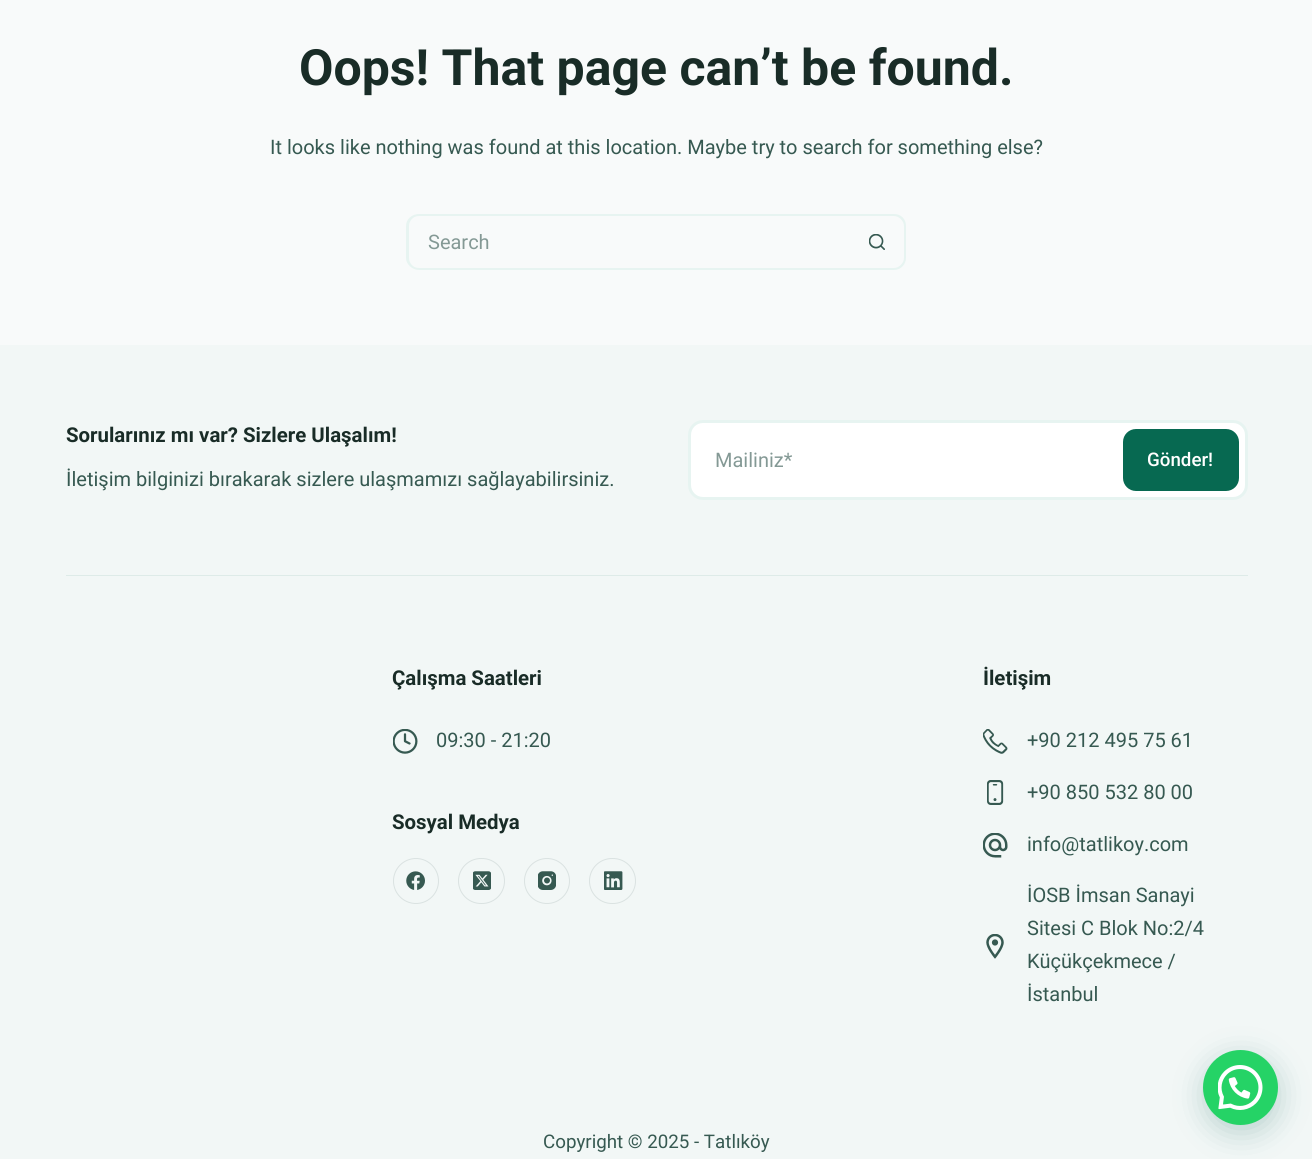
#include <cairo/cairo.h>
#include <math.h>
#include <stddef.h>

static cairo_t *cr;

static void use_color(int r, int g, int b) {
  cairo_set_source_rgb(cr, r / 255.0, g / 255.0, b / 255.0);
}

static void text(double x, double y, const char *s, const char *family, double size, int italic, int bold, int r, int g, int b) {
  cairo_select_font_face(cr, family, italic ? CAIRO_FONT_SLANT_ITALIC : CAIRO_FONT_SLANT_NORMAL,
    bold ? CAIRO_FONT_WEIGHT_BOLD : CAIRO_FONT_WEIGHT_NORMAL);
  cairo_set_font_size(cr, size);
  use_color(r, g, b);
  cairo_move_to(cr, x, y);
  cairo_show_text(cr, s);
}

static void box(double x, double y, double w, double h, int r, int g, int b) {
  use_color(r, g, b);
  cairo_rectangle(cr, x, y, w, h);
  cairo_fill(cr);
}

static void round_rect(double x, double y, double w, double h, double r) {
  cairo_new_sub_path(cr);
  cairo_arc(cr, x + w - r, y + h - r, r, 0, M_PI / 2);
  cairo_arc(cr, x + r, y + h - r, r, M_PI / 2, M_PI);
  cairo_arc(cr, x + r, y + r, r, M_PI, 1.5 * M_PI);
  cairo_arc(cr, x + w - r, y + r, r, 1.5 * M_PI, 2 * M_PI);
  cairo_close_path(cr);
}

static void shadow(double x, double y, double w, double h, double r, double blur, double alpha) {
  cairo_push_group_with_content(cr, CAIRO_CONTENT_ALPHA);
  cairo_set_operator(cr, CAIRO_OPERATOR_SOURCE);
  for (int i = 15; i >= -15 && fmin(w, h) + blur * i / 3 > 0; i -= 2) {
    double e = blur * i / 6;
    cairo_set_source_rgba(cr, 0, 0, 0, alpha * erfc((i - 1) / 8.5) / 2);
    round_rect(x - e, y - e, w + 2 * e, h + 2 * e, fmax(0, fmin(r + e + blur * .6, fmin(w, h) / 2 + e)));
    cairo_fill(cr);
  }
  cairo_pattern_t *soft = cairo_pop_group(cr);
  cairo_mask(cr, soft);
  cairo_pattern_destroy(soft);
}

static void picture(const char *path, double x, double y, double w, double h) {
  cairo_surface_t *image = cairo_image_surface_create_from_png(path);
  cairo_save(cr);
  cairo_set_source_surface(cr, image, x, y);
  cairo_rectangle(cr, x, y, w, h);
  cairo_fill(cr);
  cairo_restore(cr);
  cairo_surface_destroy(image);
}

static void draw(void) {
  use_color(248, 250, 250);
  cairo_paint(cr);
  use_color(231, 244, 241);
  cairo_set_fill_rule(cr, CAIRO_FILL_RULE_EVEN_ODD);
  cairo_new_path(cr);
  cairo_move_to(cr, 419, 214);
  cairo_line_to(cr, 850, 214);
  cairo_line_to(cr, 850, 270);
  cairo_line_to(cr, 419, 270);
  cairo_curve_to(cr, 412, 270, 406, 264, 406, 258);
  cairo_line_to(cr, 406, 226);
  cairo_curve_to(cr, 406, 219, 412, 214, 419, 214);
  cairo_close_path(cr);
  cairo_move_to(cr, 419, 216);
  cairo_line_to(cr, 850, 216);
  cairo_line_to(cr, 850, 268);
  cairo_line_to(cr, 419, 268);
  cairo_curve_to(cr, 413, 268, 409, 263, 409, 258);
  cairo_line_to(cr, 409, 226);
  cairo_curve_to(cr, 409, 221, 413, 216, 419, 216);
  cairo_close_path(cr);
  cairo_fill(cr);
  cairo_new_path(cr);
  cairo_move_to(cr, 850, 214);
  cairo_line_to(cr, 894, 214);
  cairo_curve_to(cr, 901, 214, 906, 219, 906, 226);
  cairo_line_to(cr, 906, 258);
  cairo_curve_to(cr, 906, 264, 901, 270, 894, 270);
  cairo_line_to(cr, 850, 270);
  cairo_close_path(cr);
  cairo_move_to(cr, 850, 216);
  cairo_line_to(cr, 894, 216);
  cairo_curve_to(cr, 899, 216, 904, 221, 904, 226);
  cairo_line_to(cr, 904, 258);
  cairo_curve_to(cr, 904, 263, 899, 268, 894, 268);
  cairo_line_to(cr, 850, 268);
  cairo_close_path(cr);
  cairo_fill(cr);
  picture("img_01.png", 869, 234, 16, 16);
  box(0, 345, 1312, 814, 242, 247, 246);
  box(66, 575, 1182, 1, 222, 235, 232);
  use_color(255, 255, 255);
  round_rect(689.5, 421.5, 557, 77, 13.5);
  cairo_fill_preserve(cr);
  use_color(231, 244, 241);
  cairo_set_line_width(cr, 3);
  cairo_stroke(cr);
  use_color(7, 105, 81);
  round_rect(1123, 429, 116, 62, 13);
  cairo_fill(cr);
  picture("img_02.png", 393, 729, 25, 25);
  cairo_arc(cr, 416, 881, 22.5, 0, 2 * M_PI);
  use_color(218, 226, 225);
  cairo_set_line_width(cr, 1);
  cairo_stroke(cr);
  picture("img_03.png", 406, 871, 19, 19);
  round_rect(458.5, 858.5, 46, 45, 22.5);
  cairo_stroke(cr);
  picture("img_04.png", 473, 871, 18, 19);
  cairo_arc(cr, 547, 881, 22.5, 0, 2 * M_PI);
  cairo_stroke(cr);
  picture("img_05.png", 538, 871, 18, 19);
  round_rect(589.5, 858.5, 46, 45, 22.5);
  cairo_stroke(cr);
  picture("img_06.png", 604, 871, 19, 19);
  picture("img_07.png", 983, 729, 25, 25);
  picture("img_08.png", 987, 780, 17, 25);
  picture("img_09.png", 983, 833, 25, 25);
  picture("img_10.png", 986, 934, 18, 25);
  use_color(7, 94, 84);
  shadow(1204, 1058, 75, 75, 37.5, 15, 0.24);
  use_color(37, 211, 102);
  cairo_arc(cr, 1240.5, 1087.5, 37.5, 0, 2 * M_PI);
  cairo_fill(cr);
  picture("img_11.png", 1218, 1065, 45, 45);
  text(299, 85, "Oops! That page can’t be found.", "Roboto", 50, 0, 1, 25, 44, 39);
  text(270, 154, "It looks like nothing was found at this location. Maybe try to search for something else?", "Roboto", 20, 0, 0, 54, 89, 81);
  text(428, 249, "Search", "Roboto", 20, 0, 0, 132, 153, 149);
  text(66, 442, "Sorularınız mı var? Sizlere Ulaşalım!", "Roboto", 20.4, 0, 1, 25, 44, 39);
  text(66, 486, "İletişim bilginizi bırakarak sizlere ulaşmamızı sağlayabilirsiniz.", "Roboto", 20, 0, 0, 54, 89, 81);
  text(715, 467, "Mailiniz*", "Roboto", 20, 0, 0, 132, 153, 149);
  text(1147, 466, "Gönder!", "Roboto Medium", 18.75, 0, 0, 255, 255, 255);
  text(392, 685, "Çalışma Saatleri", "Roboto", 20.4, 0, 1, 25, 44, 39);
  text(436, 747, "09:30 - 21:20", "Roboto", 20, 0, 0, 54, 89, 81);
  text(392, 829, "Sosyal Medya", "Roboto", 20.4, 0, 1, 25, 44, 39);
  text(983, 685, "İletişim", "Roboto", 20.4, 0, 1, 25, 44, 39);
  text(1027, 747, "+90 212 495 75 61", "Roboto", 20, 0, 0, 54, 89, 81);
  text(1027, 799, "+90 850 532 80 00", "Roboto", 20, 0, 0, 54, 89, 81);
  text(1027, 851, "info@tatlikoy.com", "Roboto", 20, 0, 0, 54, 89, 81);
  text(1027, 902, "İOSB İmsan Sanayi", "Roboto", 20, 0, 0, 54, 89, 81);
  text(1027, 935, "Sitesi C Blok No:2/4", "Roboto", 20, 0, 0, 54, 89, 81);
  text(1027, 968, "Küçükçekmece /", "Roboto", 20, 0, 0, 54, 89, 81);
  text(1027, 1001, "İstanbul", "Roboto", 20, 0, 0, 54, 89, 81);
  text(543, 1148, "Copyright © 2025 - Tatlıköy", "Roboto", 18.75, 0, 0, 54, 89, 81);
}

int main(void) {
  cairo_surface_t *surface = cairo_image_surface_create(CAIRO_FORMAT_RGB24, 1312, 1159);
  cr = cairo_create(surface);
  cairo_font_options_t *options = cairo_font_options_create();
  cairo_font_options_set_hint_metrics(options, CAIRO_HINT_METRICS_OFF);
  cairo_font_options_set_hint_style(options, CAIRO_HINT_STYLE_NONE);
  cairo_set_font_options(cr, options);
  cairo_set_miter_limit(cr, 4);
  draw();
  cairo_surface_write_to_png(surface, "out.png");
  cairo_font_options_destroy(options);
  cairo_destroy(cr);
  cairo_surface_destroy(surface);
  return 0;
}
